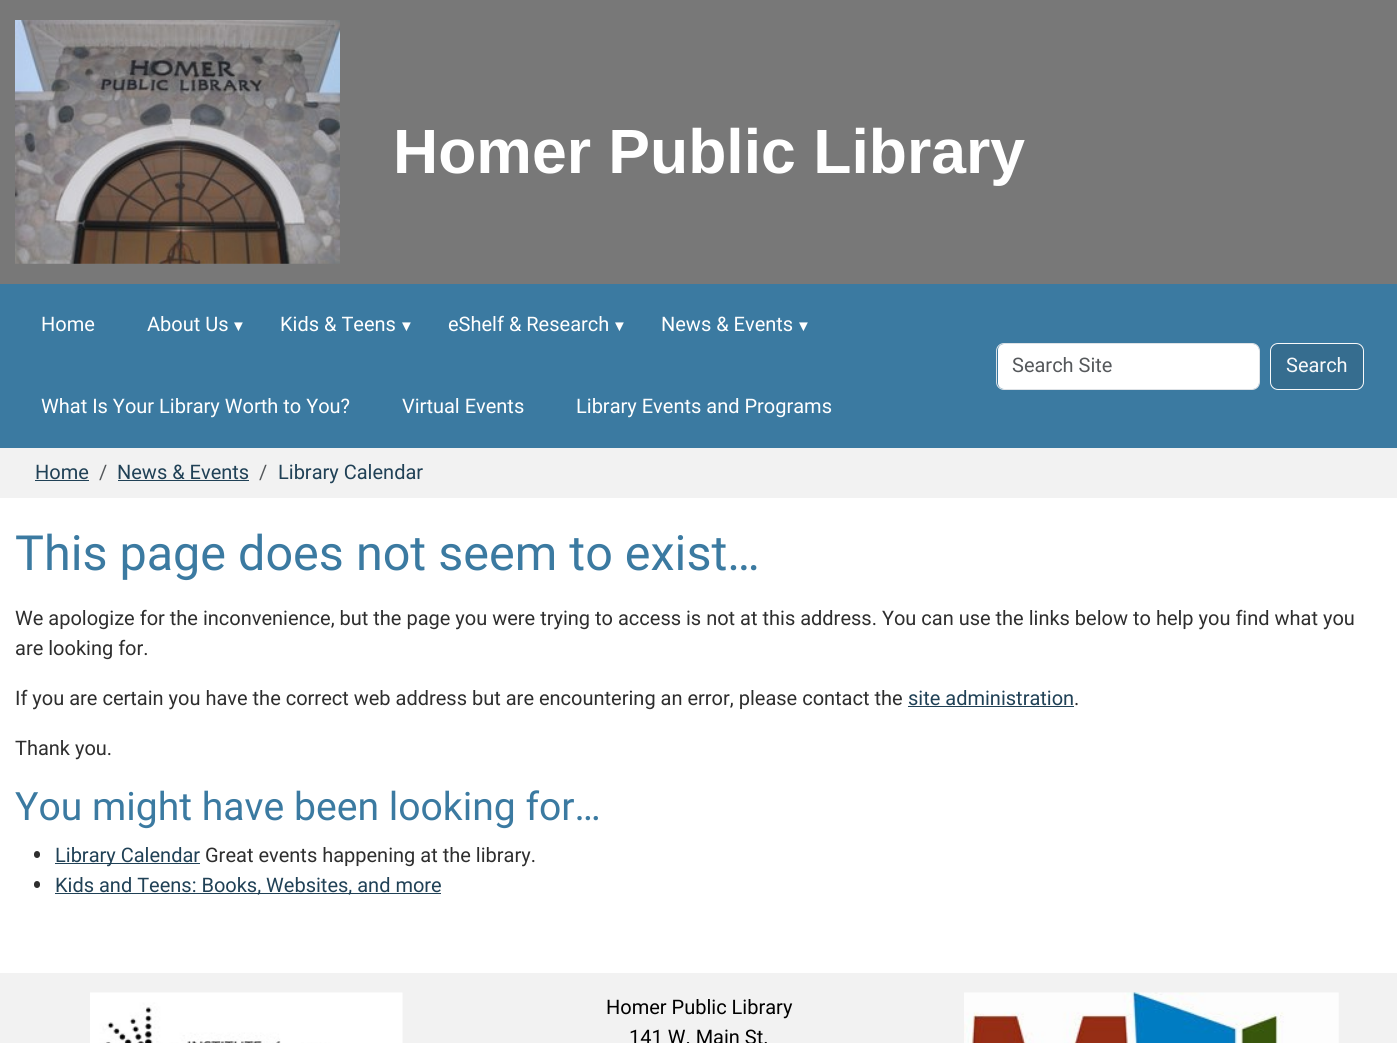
#include <cairo/cairo.h>
#include <math.h>
#include <stddef.h>

static cairo_t *cr;

static void use_color(int r, int g, int b) {
  cairo_set_source_rgb(cr, r / 255.0, g / 255.0, b / 255.0);
}

static void text(double x, double y, const char *s, const char *family, double size, int italic, int bold, int r, int g, int b) {
  cairo_select_font_face(cr, family, italic ? CAIRO_FONT_SLANT_ITALIC : CAIRO_FONT_SLANT_NORMAL,
    bold ? CAIRO_FONT_WEIGHT_BOLD : CAIRO_FONT_WEIGHT_NORMAL);
  cairo_set_font_size(cr, size);
  use_color(r, g, b);
  cairo_move_to(cr, x, y);
  cairo_show_text(cr, s);
}

static void box(double x, double y, double w, double h, int r, int g, int b) {
  use_color(r, g, b);
  cairo_rectangle(cr, x, y, w, h);
  cairo_fill(cr);
}

static void round_rect(double x, double y, double w, double h, double r) {
  cairo_new_sub_path(cr);
  cairo_arc(cr, x + w - r, y + h - r, r, 0, M_PI / 2);
  cairo_arc(cr, x + r, y + h - r, r, M_PI / 2, M_PI);
  cairo_arc(cr, x + r, y + r, r, M_PI, 1.5 * M_PI);
  cairo_arc(cr, x + w - r, y + r, r, 1.5 * M_PI, 2 * M_PI);
  cairo_close_path(cr);
}

static void picture(const char *path, double x, double y, double w, double h) {
  cairo_surface_t *image = cairo_image_surface_create_from_png(path);
  cairo_save(cr);
  cairo_set_source_surface(cr, image, x, y);
  cairo_rectangle(cr, x, y, w, h);
  cairo_fill(cr);
  cairo_restore(cr);
  cairo_surface_destroy(image);
}

static void draw(void) {
  use_color(255, 255, 255);
  cairo_paint(cr);
  box(0, 0, 1397, 284, 120, 120, 120);
  picture("img_01.png", 15, 20, 325, 244);
  box(0, 284, 1397, 164, 59, 122, 161);
  use_color(255, 255, 255);
  round_rect(998, 344, 261, 45, 6);
  cairo_fill(cr);
  round_rect(996.5, 343.5, 263, 46, 7.5);
  use_color(222, 226, 230);
  cairo_set_line_width(cr, 1);
  cairo_stroke(cr);
  use_color(54, 109, 143);
  round_rect(1270.5, 343.5, 93, 46, 7.5);
  cairo_fill_preserve(cr);
  use_color(248, 249, 250);
  cairo_stroke(cr);
  box(0, 448, 1397, 50, 242, 242, 242);
  box(35, 480, 54, 1, 32, 65, 86);
  box(118, 480, 131, 1, 32, 65, 86);
  box(908, 706, 166, 1, 32, 65, 86);
  use_color(46, 46, 46);
  round_rect(34, 851, 6, 7, 3);
  cairo_fill(cr);
  box(55, 863, 145, 1, 32, 65, 86);
  use_color(46, 46, 46);
  round_rect(34, 881, 6, 7, 3);
  cairo_fill(cr);
  box(55, 893, 386, 1, 32, 65, 86);
  box(0, 973, 1397, 70, 242, 242, 242);
  picture("img_02.png", 90, 992, 313, 51);
  picture("img_03.png", 964, 992, 375, 51);
  text(393, 173, "Homer Public Library", "Liberation Sans", 62.5, 0, 1, 255, 255, 255);
  text(41, 331, "Home", "Roboto", 20, 0, 0, 255, 255, 255);
  text(147, 331, "About Us", "Roboto", 20, 0, 0, 255, 255, 255);
  text(231, 331, "▼", "Liberation Sans", 15, 0, 0, 255, 255, 255);
  text(280, 331, "Kids & Teens", "Roboto", 20, 0, 0, 255, 255, 255);
  text(399, 331, "▼", "Liberation Sans", 15, 0, 0, 255, 255, 255);
  text(448, 331, "eShelf & Research", "Roboto", 20, 0, 0, 255, 255, 255);
  text(612, 331, "▼", "Liberation Sans", 15, 0, 0, 255, 255, 255);
  text(661, 331, "News & Events", "Roboto", 20, 0, 0, 255, 255, 255);
  text(796, 331, "▼", "Liberation Sans", 15, 0, 0, 255, 255, 255);
  text(41, 413, "What Is Your Library Worth to You?", "Roboto", 20, 0, 0, 255, 255, 255);
  text(402, 413, "Virtual Events", "Roboto", 20, 0, 0, 255, 255, 255);
  text(576, 413, "Library Events and Programs", "Roboto", 20, 0, 0, 255, 255, 255);
  text(1012, 372, "Search Site", "Roboto", 20, 0, 0, 85, 88, 91);
  text(1286, 372, "Search", "Roboto", 20, 0, 0, 248, 249, 250);
  text(35, 479, "Home", "Roboto", 20, 0, 0, 32, 65, 86);
  text(99, 479, "/", "Roboto", 20, 0, 0, 85, 88, 91);
  text(117, 479, "News & Events", "Roboto", 20, 0, 0, 32, 65, 86);
  text(259, 479, "/", "Roboto", 20, 0, 0, 85, 88, 91);
  text(278, 479, "Library Calendar", "Roboto", 20, 0, 0, 32, 65, 86);
  text(15, 570, "This page does not seem to exist…", "Roboto", 48.5, 0, 0, 59, 122, 161);
  text(15, 625, "We apologize for the inconvenience, but the page you were trying to access is not at this address. You can use the links below to help you find what you", "Roboto", 20, 0, 0, 46, 46, 46);
  text(15, 655, "are looking for.", "Roboto", 20, 0, 0, 46, 46, 46);
  text(15, 705, "If you are certain you have the correct web address but are encountering an error, please contact the", "Roboto", 20, 0, 0, 46, 46, 46);
  text(908, 705, "site administration", "Roboto", 20, 0, 0, 32, 65, 86);
  text(1074, 705, ".", "Roboto", 20, 0, 0, 46, 46, 46);
  text(15, 755, "Thank you.", "Roboto", 20, 0, 0, 46, 46, 46);
  text(15, 820, "You might have been looking for…", "Roboto", 39.1, 0, 0, 59, 122, 161);
  text(55, 862, "Library Calendar", "Roboto", 20, 0, 0, 32, 65, 86);
  text(205, 862, "Great events happening at the library.", "Roboto", 20, 0, 0, 46, 46, 46);
  text(55, 892, "Kids and Teens: Books, Websites, and more", "Roboto", 20, 0, 0, 32, 65, 86);
  text(606, 1014, "Homer Public Library", "Roboto", 20, 0, 0, 0, 0, 0);
  text(629, 1044, "141 W. Main St.", "Roboto", 20, 0, 0, 0, 0, 0);
}

int main(void) {
  cairo_surface_t *surface = cairo_image_surface_create(CAIRO_FORMAT_RGB24, 1397, 1043);
  cr = cairo_create(surface);
  cairo_font_options_t *options = cairo_font_options_create();
  cairo_font_options_set_hint_metrics(options, CAIRO_HINT_METRICS_OFF);
  cairo_font_options_set_hint_style(options, CAIRO_HINT_STYLE_NONE);
  cairo_set_font_options(cr, options);
  cairo_set_miter_limit(cr, 4);
  draw();
  cairo_surface_write_to_png(surface, "out.png");
  cairo_font_options_destroy(options);
  cairo_destroy(cr);
  cairo_surface_destroy(surface);
  return 0;
}
